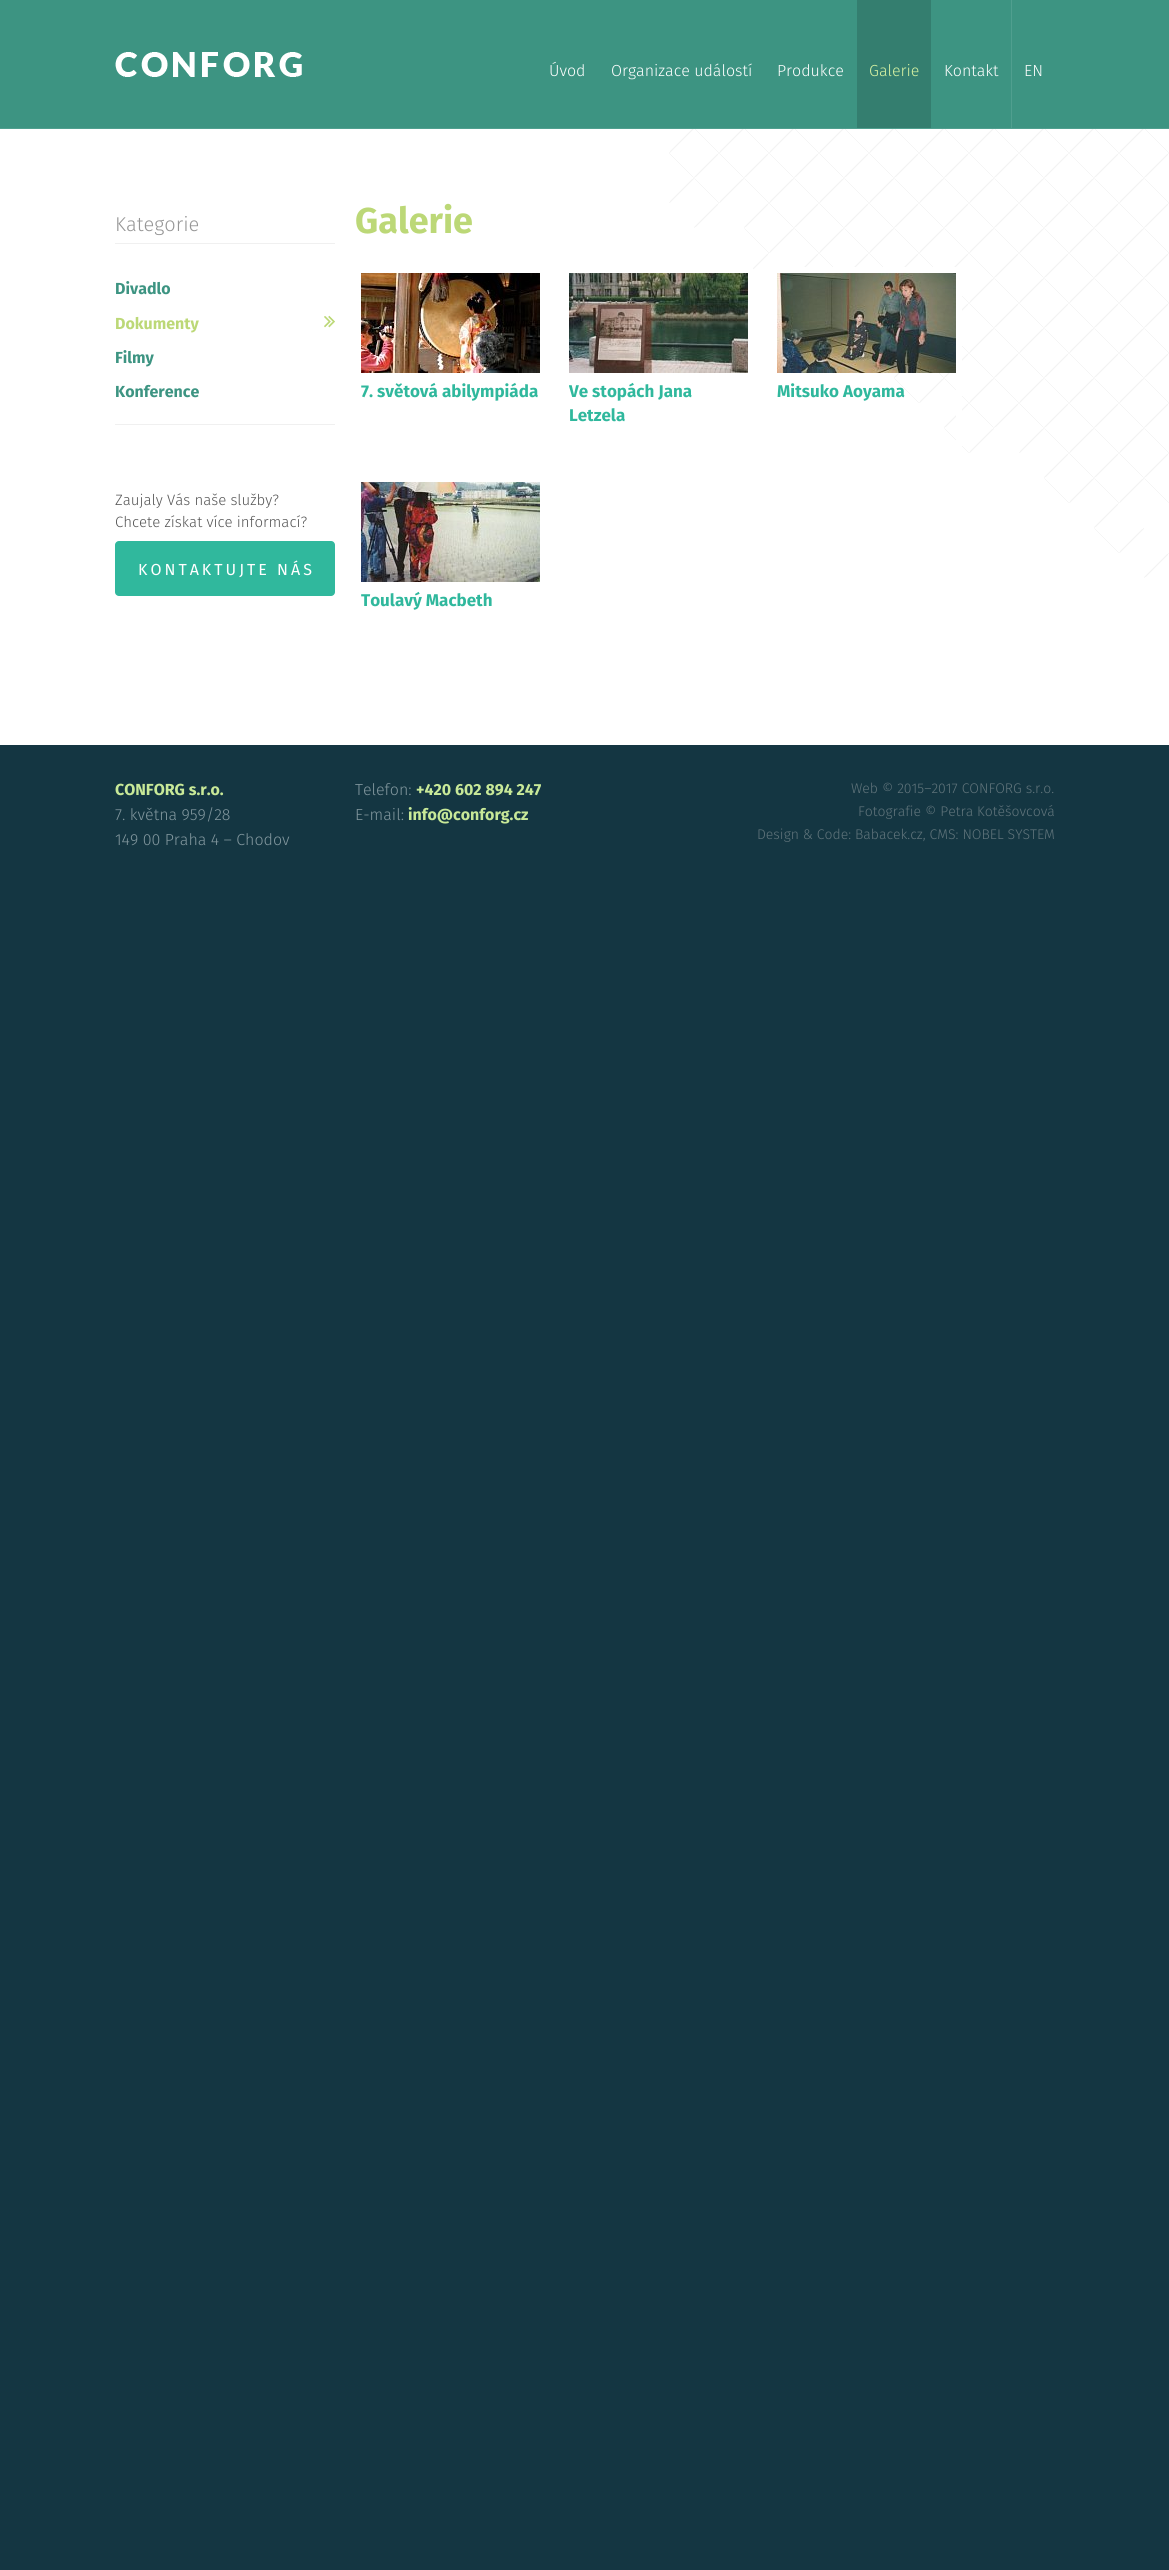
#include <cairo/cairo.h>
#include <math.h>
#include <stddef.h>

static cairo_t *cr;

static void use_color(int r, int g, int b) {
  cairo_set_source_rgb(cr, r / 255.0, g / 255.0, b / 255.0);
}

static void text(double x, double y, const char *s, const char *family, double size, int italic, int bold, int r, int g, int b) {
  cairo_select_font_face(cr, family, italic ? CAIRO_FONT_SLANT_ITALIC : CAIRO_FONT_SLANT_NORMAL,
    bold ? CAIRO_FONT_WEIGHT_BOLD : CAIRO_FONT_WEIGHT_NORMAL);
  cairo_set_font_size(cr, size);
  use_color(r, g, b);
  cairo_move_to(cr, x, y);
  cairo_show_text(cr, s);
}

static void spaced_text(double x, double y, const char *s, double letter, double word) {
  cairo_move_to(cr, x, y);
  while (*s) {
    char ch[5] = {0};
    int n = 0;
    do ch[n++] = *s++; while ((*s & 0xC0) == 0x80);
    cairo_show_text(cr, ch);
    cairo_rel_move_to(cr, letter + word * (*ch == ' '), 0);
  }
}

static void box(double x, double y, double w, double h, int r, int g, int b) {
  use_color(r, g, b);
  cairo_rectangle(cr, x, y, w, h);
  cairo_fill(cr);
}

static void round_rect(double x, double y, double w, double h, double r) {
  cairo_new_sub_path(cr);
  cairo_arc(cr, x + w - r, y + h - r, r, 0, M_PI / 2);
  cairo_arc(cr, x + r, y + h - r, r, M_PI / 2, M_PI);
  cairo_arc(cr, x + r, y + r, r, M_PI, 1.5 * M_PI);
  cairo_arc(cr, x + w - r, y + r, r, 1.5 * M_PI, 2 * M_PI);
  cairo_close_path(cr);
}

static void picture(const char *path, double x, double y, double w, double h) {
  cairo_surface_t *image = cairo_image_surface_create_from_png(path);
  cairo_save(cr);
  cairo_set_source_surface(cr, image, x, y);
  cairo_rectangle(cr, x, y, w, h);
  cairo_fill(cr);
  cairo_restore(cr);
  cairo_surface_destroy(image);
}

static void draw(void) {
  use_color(20, 54, 66);
  cairo_paint(cr);
  box(0, 0, 1169, 128, 61, 148, 130);
  box(0, 128, 1169, 1, 80, 159, 143);
  picture("img_01.png", 115, 52, 187, 25);
  box(857, 0, 74, 128, 52, 126, 111);
  box(1011, 0, 1, 128, 80, 159, 143);
  box(0, 129, 1169, 616, 255, 255, 255);
  picture("img_02.png", 669, 129, 500, 449);
  box(115, 243, 220, 1, 240, 240, 240);
  box(115, 424, 220, 1, 240, 240, 240);
  picture("img_03.png", 324, 315, 11, 13);
  use_color(48, 184, 157);
  round_rect(115, 541, 220, 55, 4);
  cairo_fill(cr);
  picture("img_04.png", 361, 273, 179, 100);
  round_rect(566, 270, 185, 186, 1);
  use_color(255, 255, 255);
  cairo_set_line_width(cr, 6);
  cairo_stroke(cr);
  picture("img_05.png", 569, 273, 179, 100);
  round_rect(774, 270, 185, 186, 1);
  cairo_stroke(cr);
  picture("img_06.png", 777, 273, 179, 100);
  picture("img_07.png", 361, 482, 179, 100);
  text(549, 76, "Úvod", "Fira Sans Light", 16, 0, 0, 255, 255, 255);
  text(611, 76, "Organizace událostí", "Fira Sans Light", 16, 0, 0, 255, 255, 255);
  text(777, 76, "Produkce", "Fira Sans Light", 16, 0, 0, 255, 255, 255);
  text(869, 76, "Galerie", "Fira Sans Light", 16, 0, 0, 216, 243, 163);
  text(944, 76, "Kontakt", "Fira Sans Light", 16, 0, 0, 255, 255, 255);
  text(1024, 76, "EN", "Fira Sans Light", 16, 0, 0, 255, 255, 255);
  text(115, 231, "Kategorie", "Fira Sans Light", 20, 0, 0, 150, 150, 150);
  text(115, 294, "Divadlo", "Fira Sans", 16, 0, 1, 61, 148, 130);
  text(115, 329, "Dokumenty", "Fira Sans", 16, 0, 1, 188, 216, 119);
  text(115, 363, "Filmy", "Fira Sans", 16, 0, 1, 61, 148, 130);
  text(115, 397, "Konference", "Fira Sans", 16, 0, 1, 61, 148, 130);
  text(115, 505, "Zaujaly Vás naše služby?", "Fira Sans Light", 15, 0, 0, 85, 85, 85);
  text(115, 527, "Chcete získat více informací?", "Fira Sans Light", 15, 0, 0, 85, 85, 85);
  cairo_select_font_face(cr, "Fira Sans", CAIRO_FONT_SLANT_NORMAL, CAIRO_FONT_WEIGHT_NORMAL);
  cairo_set_font_size(cr, 16);
  use_color(255, 255, 255);
  spaced_text(138, 575, "KONTAKTUJTE NÁS", 3, 0);
  text(355, 233, "Galerie", "Fira Sans", 36, 0, 1, 188, 216, 119);
  cairo_save(cr);
  cairo_rectangle(cr, 361, 273, 179, 180);
  cairo_clip(cr);
  text(361, 397, "7. světová abilympiáda", "Fira Sans", 17, 0, 1, 48, 184, 157);
  cairo_restore(cr);
  cairo_save(cr);
  cairo_rectangle(cr, 569, 273, 179, 180);
  cairo_clip(cr);
  text(569, 397, "Ve stopách Jana", "Fira Sans", 17, 0, 1, 48, 184, 157);
  cairo_restore(cr);
  text(569, 421, "Letzela", "Fira Sans", 17, 0, 1, 48, 184, 157);
  text(777, 397, "Mitsuko Aoyama", "Fira Sans", 17, 0, 1, 48, 184, 157);
  cairo_save(cr);
  cairo_rectangle(cr, 361, 482, 179, 180);
  cairo_clip(cr);
  text(361, 606, "Toulavý Macbeth", "Fira Sans", 17, 0, 1, 48, 184, 157);
  cairo_restore(cr);
  text(115, 795, "CONFORG s.r.o.", "Fira Sans", 16, 0, 1, 200, 233, 152);
  text(115, 820, "7. května 959/28", "Fira Sans Light", 16, 0, 0, 130, 151, 158);
  text(115, 845, "149 00 Praha 4 – Chodov", "Fira Sans Light", 16, 0, 0, 130, 151, 158);
  text(355, 795, "Telefon:", "Fira Sans Light", 16, 0, 0, 130, 151, 158);
  text(416, 795, "+420 602 894 247", "Fira Sans", 16, 0, 1, 200, 233, 152);
  text(355, 820, "E-mail:", "Fira Sans Light", 16, 0, 0, 130, 151, 158);
  text(408, 820, "info@conforg.cz", "Fira Sans", 16, 0, 1, 200, 233, 152);
  text(851, 793, "Web © 2015–2017 CONFORG s.r.o.", "Fira Sans Light", 14, 0, 0, 96, 116, 123);
  text(858, 816, "Fotografie © Petra Kotěšovcová", "Fira Sans Light", 14, 0, 0, 96, 116, 123);
  text(757, 839, "Design & Code: Babacek.cz, CMS: NOBEL SYSTEM", "Fira Sans Light", 14, 0, 0, 96, 116, 123);
}

int main(void) {
  cairo_surface_t *surface = cairo_image_surface_create(CAIRO_FORMAT_RGB24, 1169, 2570);
  cr = cairo_create(surface);
  cairo_font_options_t *options = cairo_font_options_create();
  cairo_font_options_set_hint_metrics(options, CAIRO_HINT_METRICS_OFF);
  cairo_font_options_set_hint_style(options, CAIRO_HINT_STYLE_NONE);
  cairo_set_font_options(cr, options);
  cairo_set_miter_limit(cr, 4);
  draw();
  cairo_surface_write_to_png(surface, "out.png");
  cairo_font_options_destroy(options);
  cairo_destroy(cr);
  cairo_surface_destroy(surface);
  return 0;
}
